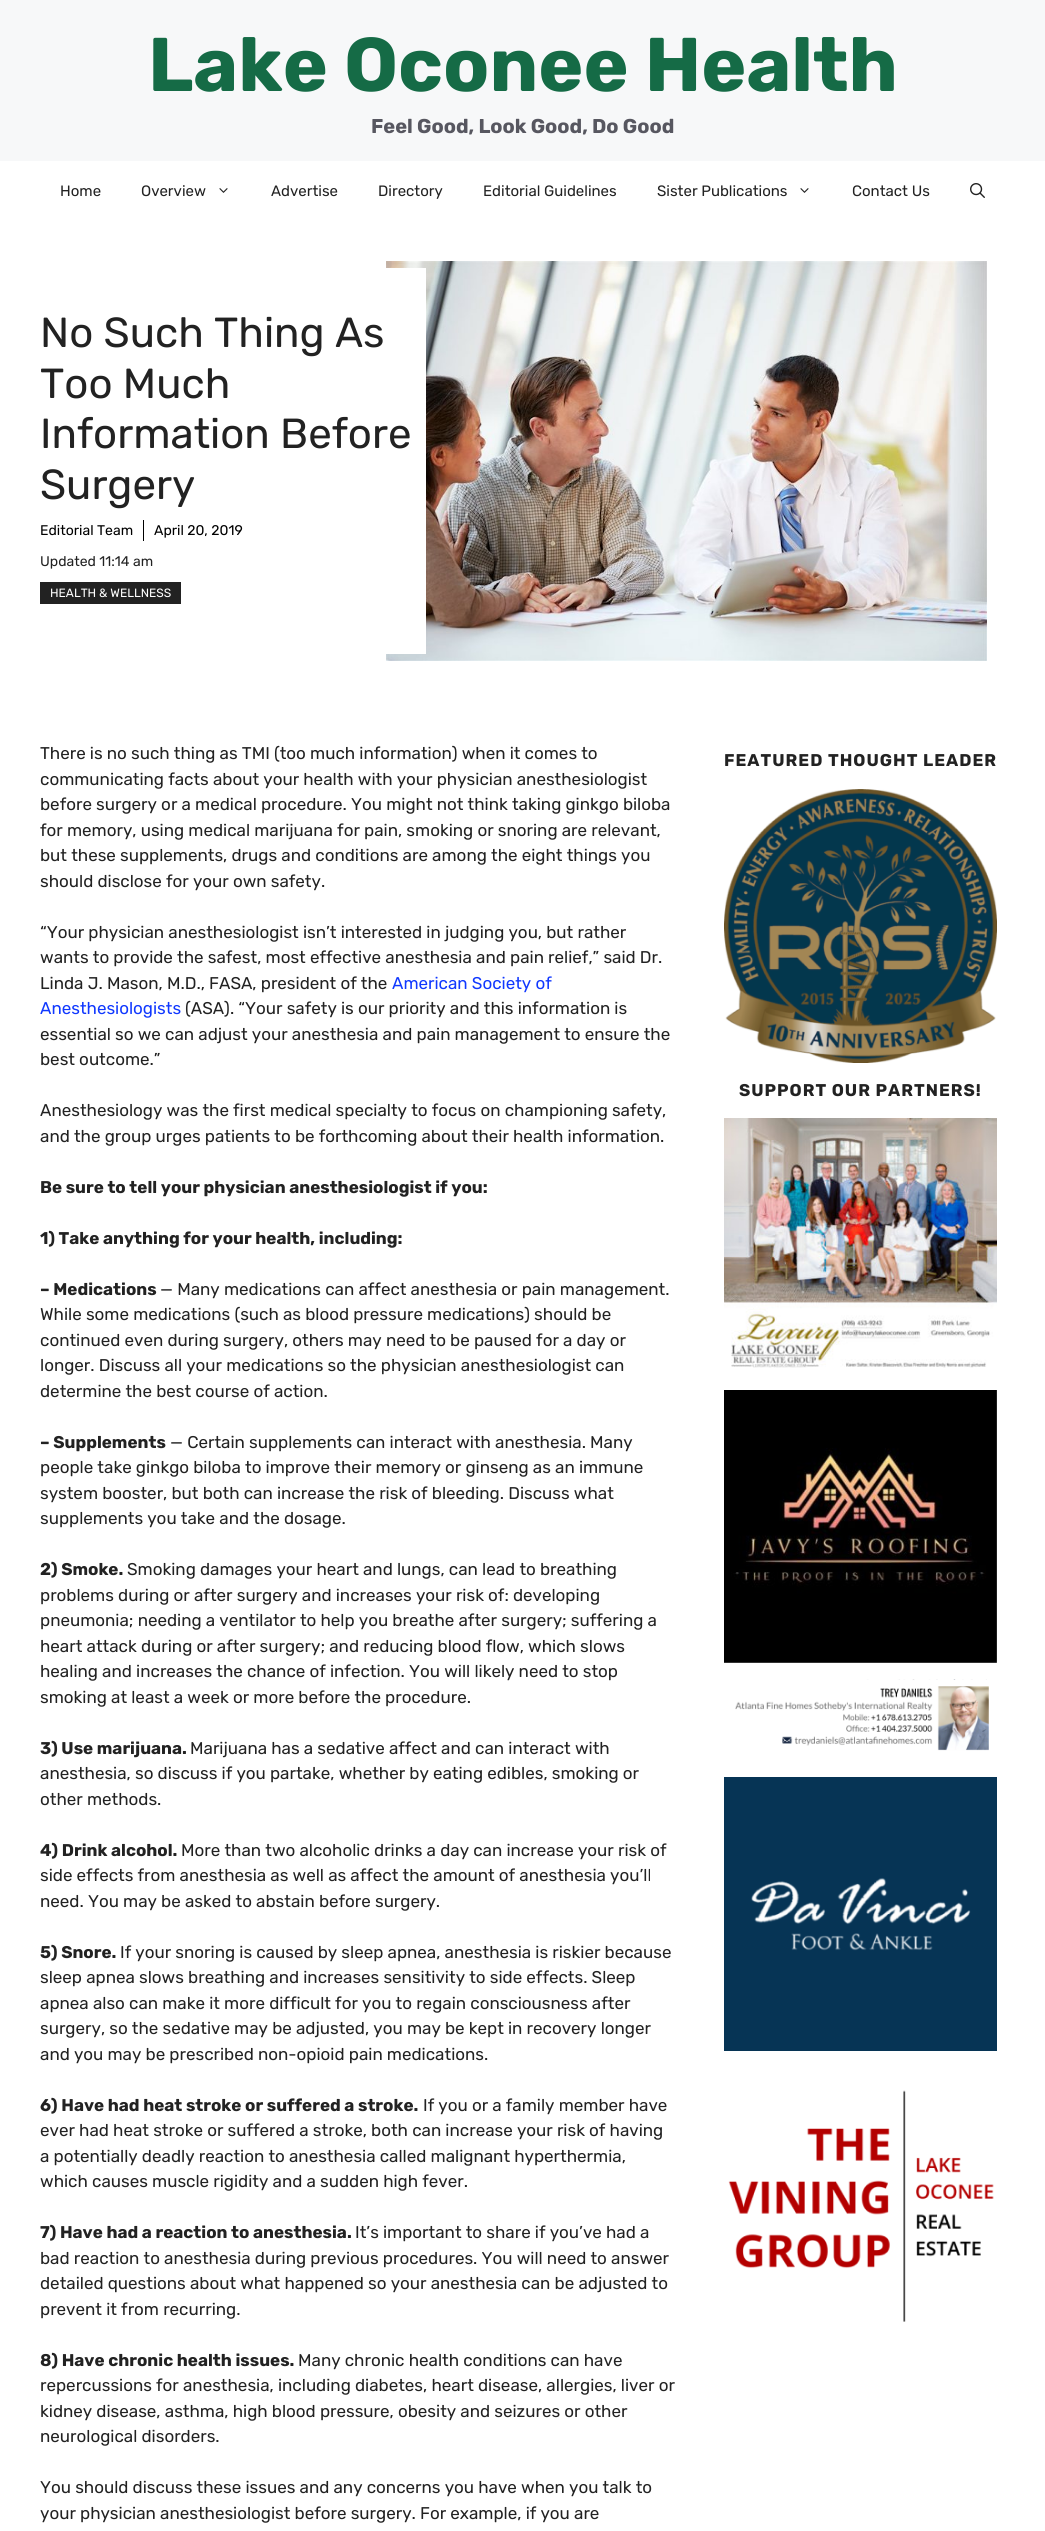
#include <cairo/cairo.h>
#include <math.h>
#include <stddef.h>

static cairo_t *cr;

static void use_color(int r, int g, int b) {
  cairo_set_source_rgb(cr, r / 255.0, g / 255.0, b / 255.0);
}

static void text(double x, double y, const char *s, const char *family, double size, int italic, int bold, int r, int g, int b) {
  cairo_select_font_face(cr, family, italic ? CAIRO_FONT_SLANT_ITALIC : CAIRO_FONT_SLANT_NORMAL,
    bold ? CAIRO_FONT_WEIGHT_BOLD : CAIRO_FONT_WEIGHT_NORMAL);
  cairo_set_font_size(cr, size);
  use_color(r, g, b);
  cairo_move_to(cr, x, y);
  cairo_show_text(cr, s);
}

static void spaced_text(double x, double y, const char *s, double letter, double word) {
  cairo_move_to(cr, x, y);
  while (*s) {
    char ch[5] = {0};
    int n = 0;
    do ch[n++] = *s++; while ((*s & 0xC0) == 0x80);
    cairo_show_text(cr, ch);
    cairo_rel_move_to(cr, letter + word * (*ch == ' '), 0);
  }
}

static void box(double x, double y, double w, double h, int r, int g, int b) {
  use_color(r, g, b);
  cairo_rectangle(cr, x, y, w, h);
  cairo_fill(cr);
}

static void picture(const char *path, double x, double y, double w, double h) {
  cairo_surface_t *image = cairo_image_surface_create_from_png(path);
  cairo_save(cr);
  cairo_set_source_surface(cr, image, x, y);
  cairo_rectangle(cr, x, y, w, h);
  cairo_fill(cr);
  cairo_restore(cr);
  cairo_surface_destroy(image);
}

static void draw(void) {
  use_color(255, 255, 255);
  cairo_paint(cr);
  box(0, 0, 1045, 161, 247, 248, 249);
  picture("img_01.png", 219, 188, 9, 5);
  picture("img_01.png", 800, 188, 9, 5);
  picture("img_02.png", 970, 183, 15, 15);
  picture("img_03.png", 386, 261, 601, 400);
  box(386, 268, 40, 386, 255, 255, 255);
  box(143, 520, 1, 21, 0, 0, 0);
  box(40, 582, 141, 22, 34, 34, 34);
  picture("img_04.png", 724, 789, 273, 274);
  picture("img_05.png", 724, 1118, 273, 250);
  picture("img_06.png", 724, 1390, 273, 273);
  picture("img_07.png", 735, 1679, 254, 72);
  picture("img_08.png", 724, 1777, 273, 274);
  picture("img_09.png", 728, 2090, 266, 232);
  text(148, 91, "Lake Oconee Health", "Rubik", 76, 0, 1, 21, 107, 70);
  text(371, 133, "Feel Good, Look Good, Do Good", "Rubik", 20, 0, 1, 87, 87, 96);
  text(60, 196, "Home", "Rubik", 15, 0, 0, 34, 34, 34);
  text(141, 196, "Overview", "Rubik", 15, 0, 0, 34, 34, 34);
  text(271, 196, "Advertise", "Rubik", 15, 0, 0, 34, 34, 34);
  text(378, 196, "Directory", "Rubik", 15, 0, 0, 34, 34, 34);
  text(483, 196, "Editorial Guidelines", "Rubik", 15, 0, 0, 34, 34, 34);
  text(657, 196, "Sister Publications", "Rubik", 15, 0, 0, 34, 34, 34);
  text(852, 196, "Contact Us", "Rubik", 15, 0, 0, 34, 34, 34);
  text(40, 347, "No Such Thing As", "Rubik", 42, 0, 0, 34, 34, 34);
  text(40, 398, "Too Much", "Rubik", 42, 0, 0, 34, 34, 34);
  text(40, 448, "Information Before", "Rubik", 42, 0, 0, 34, 34, 34);
  text(40, 499, "Surgery", "Rubik", 42, 0, 0, 34, 34, 34);
  text(40, 535, "Editorial Team", "Rubik", 14, 0, 0, 0, 0, 0);
  text(154, 535, "April 20, 2019", "Rubik", 14, 0, 0, 0, 0, 0);
  text(40, 566, "Updated 11:14 am", "Rubik", 14, 0, 0, 34, 34, 34);
  text(50, 597, "HEALTH & WELLNESS", "Rubik", 12, 0, 0, 255, 255, 255);
  text(40, 759, "There is no such thing as TMI (too much information) when it comes to", "Rubik", 17, 0, 0, 34, 34, 34);
  text(40, 785, "communicating facts about your health with your physician anesthesiologist", "Rubik", 17, 0, 0, 34, 34, 34);
  text(40, 810, "before surgery or a medical procedure. You might not think taking ginkgo biloba", "Rubik", 17, 0, 0, 34, 34, 34);
  text(40, 836, "for memory, using medical marijuana for pain, smoking or snoring are relevant,", "Rubik", 17, 0, 0, 34, 34, 34);
  text(40, 861, "but these supplements, drugs and conditions are among the eight things you", "Rubik", 17, 0, 0, 34, 34, 34);
  text(40, 887, "should disclose for your own safety.", "Rubik", 17, 0, 0, 34, 34, 34);
  text(40, 938, "“Your physician anesthesiologist isn’t interested in judging you, but rather", "Rubik", 17, 0, 0, 34, 34, 34);
  text(40, 963, "wants to provide the safest, most effective anesthesia and pain relief,” said Dr.", "Rubik", 17, 0, 0, 34, 34, 34);
  text(40, 989, "Linda J. Mason, M.D., FASA, president of the", "Rubik", 17, 0, 0, 34, 34, 34);
  text(392, 989, "American Society of", "Rubik", 17, 0, 0, 16, 56, 255);
  text(40, 1014, "Anesthesiologists", "Rubik", 17, 0, 0, 16, 56, 255);
  text(185, 1014, "(ASA). “Your safety is our priority and this information is", "Rubik", 17, 0, 0, 34, 34, 34);
  text(40, 1040, "essential so we can adjust your anesthesia and pain management to ensure the", "Rubik", 17, 0, 0, 34, 34, 34);
  text(40, 1065, "best outcome.”", "Rubik", 17, 0, 0, 34, 34, 34);
  text(40, 1116, "Anesthesiology was the first medical specialty to focus on championing safety,", "Rubik", 17, 0, 0, 34, 34, 34);
  text(40, 1142, "and the group urges patients to be forthcoming about their health information.", "Rubik", 17, 0, 0, 34, 34, 34);
  text(40, 1193, "Be sure to tell your physician anesthesiologist if you:", "Rubik", 17, 0, 1, 34, 34, 34);
  text(40, 1244, "1) Take anything for your health, including:", "Rubik", 17, 0, 1, 34, 34, 34);
  text(40, 1295, "– Medications", "Rubik", 17, 0, 1, 34, 34, 34);
  text(160, 1295, "— Many medications can affect anesthesia or pain management.", "Rubik", 17, 0, 0, 34, 34, 34);
  text(40, 1320, "While some medications (such as blood pressure medications) should be", "Rubik", 17, 0, 0, 34, 34, 34);
  text(40, 1346, "continued even during surgery, others may need to be paused for a day or", "Rubik", 17, 0, 0, 34, 34, 34);
  text(40, 1371, "longer. Discuss all your medications so the physician anesthesiologist can", "Rubik", 17, 0, 0, 34, 34, 34);
  text(40, 1397, "determine the best course of action.", "Rubik", 17, 0, 0, 34, 34, 34);
  text(40, 1448, "– Supplements", "Rubik", 17, 0, 1, 34, 34, 34);
  text(170, 1448, "— Certain supplements can interact with anesthesia. Many", "Rubik", 17, 0, 0, 34, 34, 34);
  text(40, 1473, "people take ginkgo biloba to improve their memory or ginseng as an immune", "Rubik", 17, 0, 0, 34, 34, 34);
  text(40, 1499, "system booster, but both can increase the risk of bleeding. Discuss what", "Rubik", 17, 0, 0, 34, 34, 34);
  text(40, 1524, "supplements you take and the dosage.", "Rubik", 17, 0, 0, 34, 34, 34);
  text(40, 1575, "2) Smoke.", "Rubik", 17, 0, 1, 34, 34, 34);
  text(127, 1575, "Smoking damages your heart and lungs, can lead to breathing", "Rubik", 17, 0, 0, 34, 34, 34);
  text(40, 1601, "problems during or after surgery and increases your risk of: developing", "Rubik", 17, 0, 0, 34, 34, 34);
  text(40, 1626, "pneumonia; needing a ventilator to help you breathe after surgery; suffering a", "Rubik", 17, 0, 0, 34, 34, 34);
  text(40, 1652, "heart attack during or after surgery; and reducing blood flow, which slows", "Rubik", 17, 0, 0, 34, 34, 34);
  text(40, 1677, "healing and increases the chance of infection. You will likely need to stop", "Rubik", 17, 0, 0, 34, 34, 34);
  text(40, 1703, "smoking at least a week or more before the procedure.", "Rubik", 17, 0, 0, 34, 34, 34);
  text(40, 1754, "3) Use marijuana.", "Rubik", 17, 0, 1, 34, 34, 34);
  text(190, 1754, "Marijuana has a sedative affect and can interact with", "Rubik", 17, 0, 0, 34, 34, 34);
  text(40, 1779, "anesthesia, so discuss if you partake, whether by eating edibles, smoking or", "Rubik", 17, 0, 0, 34, 34, 34);
  text(40, 1805, "other methods.", "Rubik", 17, 0, 0, 34, 34, 34);
  text(40, 1856, "4) Drink alcohol.", "Rubik", 17, 0, 1, 34, 34, 34);
  text(181, 1856, "More than two alcoholic drinks a day can increase your risk of", "Rubik", 17, 0, 0, 34, 34, 34);
  text(40, 1881, "side effects from anesthesia as well as affect the amount of anesthesia you’ll", "Rubik", 17, 0, 0, 34, 34, 34);
  text(40, 1907, "need. You may be asked to abstain before surgery.", "Rubik", 17, 0, 0, 34, 34, 34);
  text(40, 1958, "5) Snore.", "Rubik", 17, 0, 1, 34, 34, 34);
  text(120, 1958, "If your snoring is caused by sleep apnea, anesthesia is riskier because", "Rubik", 17, 0, 0, 34, 34, 34);
  text(40, 1983, "sleep apnea slows breathing and increases sensitivity to side effects. Sleep", "Rubik", 17, 0, 0, 34, 34, 34);
  text(40, 2009, "apnea also can make it more difficult for you to regain consciousness after", "Rubik", 17, 0, 0, 34, 34, 34);
  text(40, 2034, "surgery, so the sedative may be adjusted, you may be kept in recovery longer", "Rubik", 17, 0, 0, 34, 34, 34);
  text(40, 2060, "and you may be prescribed non-opioid pain medications.", "Rubik", 17, 0, 0, 34, 34, 34);
  text(40, 2111, "6) Have had heat stroke or suffered a stroke.", "Rubik", 17, 0, 1, 34, 34, 34);
  text(423, 2111, "If you or a family member have", "Rubik", 17, 0, 0, 34, 34, 34);
  text(40, 2136, "ever had heat stroke or suffered a stroke, both can increase your risk of having", "Rubik", 17, 0, 0, 34, 34, 34);
  text(40, 2162, "a potentially deadly reaction to anesthesia called malignant hyperthermia,", "Rubik", 17, 0, 0, 34, 34, 34);
  text(40, 2187, "which causes muscle rigidity and a sudden high fever.", "Rubik", 17, 0, 0, 34, 34, 34);
  text(40, 2238, "7) Have had a reaction to anesthesia.", "Rubik", 17, 0, 1, 34, 34, 34);
  text(355, 2238, "It’s important to share if you’ve had a", "Rubik", 17, 0, 0, 34, 34, 34);
  text(40, 2264, "bad reaction to anesthesia during previous procedures. You will need to answer", "Rubik", 17, 0, 0, 34, 34, 34);
  text(40, 2289, "detailed questions about what happened so your anesthesia can be adjusted to", "Rubik", 17, 0, 0, 34, 34, 34);
  text(40, 2315, "prevent it from recurring.", "Rubik", 17, 0, 0, 34, 34, 34);
  text(40, 2366, "8) Have chronic health issues.", "Rubik", 17, 0, 1, 34, 34, 34);
  text(298, 2366, "Many chronic health conditions can have", "Rubik", 17, 0, 0, 34, 34, 34);
  text(40, 2391, "repercussions for anesthesia, including diabetes, heart disease, allergies, liver or", "Rubik", 17, 0, 0, 34, 34, 34);
  text(40, 2417, "kidney disease, asthma, high blood pressure, obesity and seizures or other", "Rubik", 17, 0, 0, 34, 34, 34);
  text(40, 2442, "neurological disorders.", "Rubik", 17, 0, 0, 34, 34, 34);
  text(40, 2493, "You should discuss these issues and any concerns you have when you talk to", "Rubik", 17, 0, 0, 34, 34, 34);
  text(40, 2519, "your physician anesthesiologist before surgery. For example, if you are", "Rubik", 17, 0, 0, 34, 34, 34);
  cairo_select_font_face(cr, "Rubik", CAIRO_FONT_SLANT_NORMAL, CAIRO_FONT_WEIGHT_BOLD);
  spaced_text(724, 766, "FEATURED THOUGHT LEADER", 1, 0);
  spaced_text(739, 1096, "SUPPORT OUR PARTNERS!", 1, 0);
}

int main(void) {
  cairo_surface_t *surface = cairo_image_surface_create(CAIRO_FORMAT_RGB24, 1045, 2531);
  cr = cairo_create(surface);
  cairo_font_options_t *options = cairo_font_options_create();
  cairo_font_options_set_hint_metrics(options, CAIRO_HINT_METRICS_OFF);
  cairo_font_options_set_hint_style(options, CAIRO_HINT_STYLE_NONE);
  cairo_set_font_options(cr, options);
  cairo_set_miter_limit(cr, 4);
  draw();
  cairo_surface_write_to_png(surface, "out.png");
  cairo_font_options_destroy(options);
  cairo_destroy(cr);
  cairo_surface_destroy(surface);
  return 0;
}
